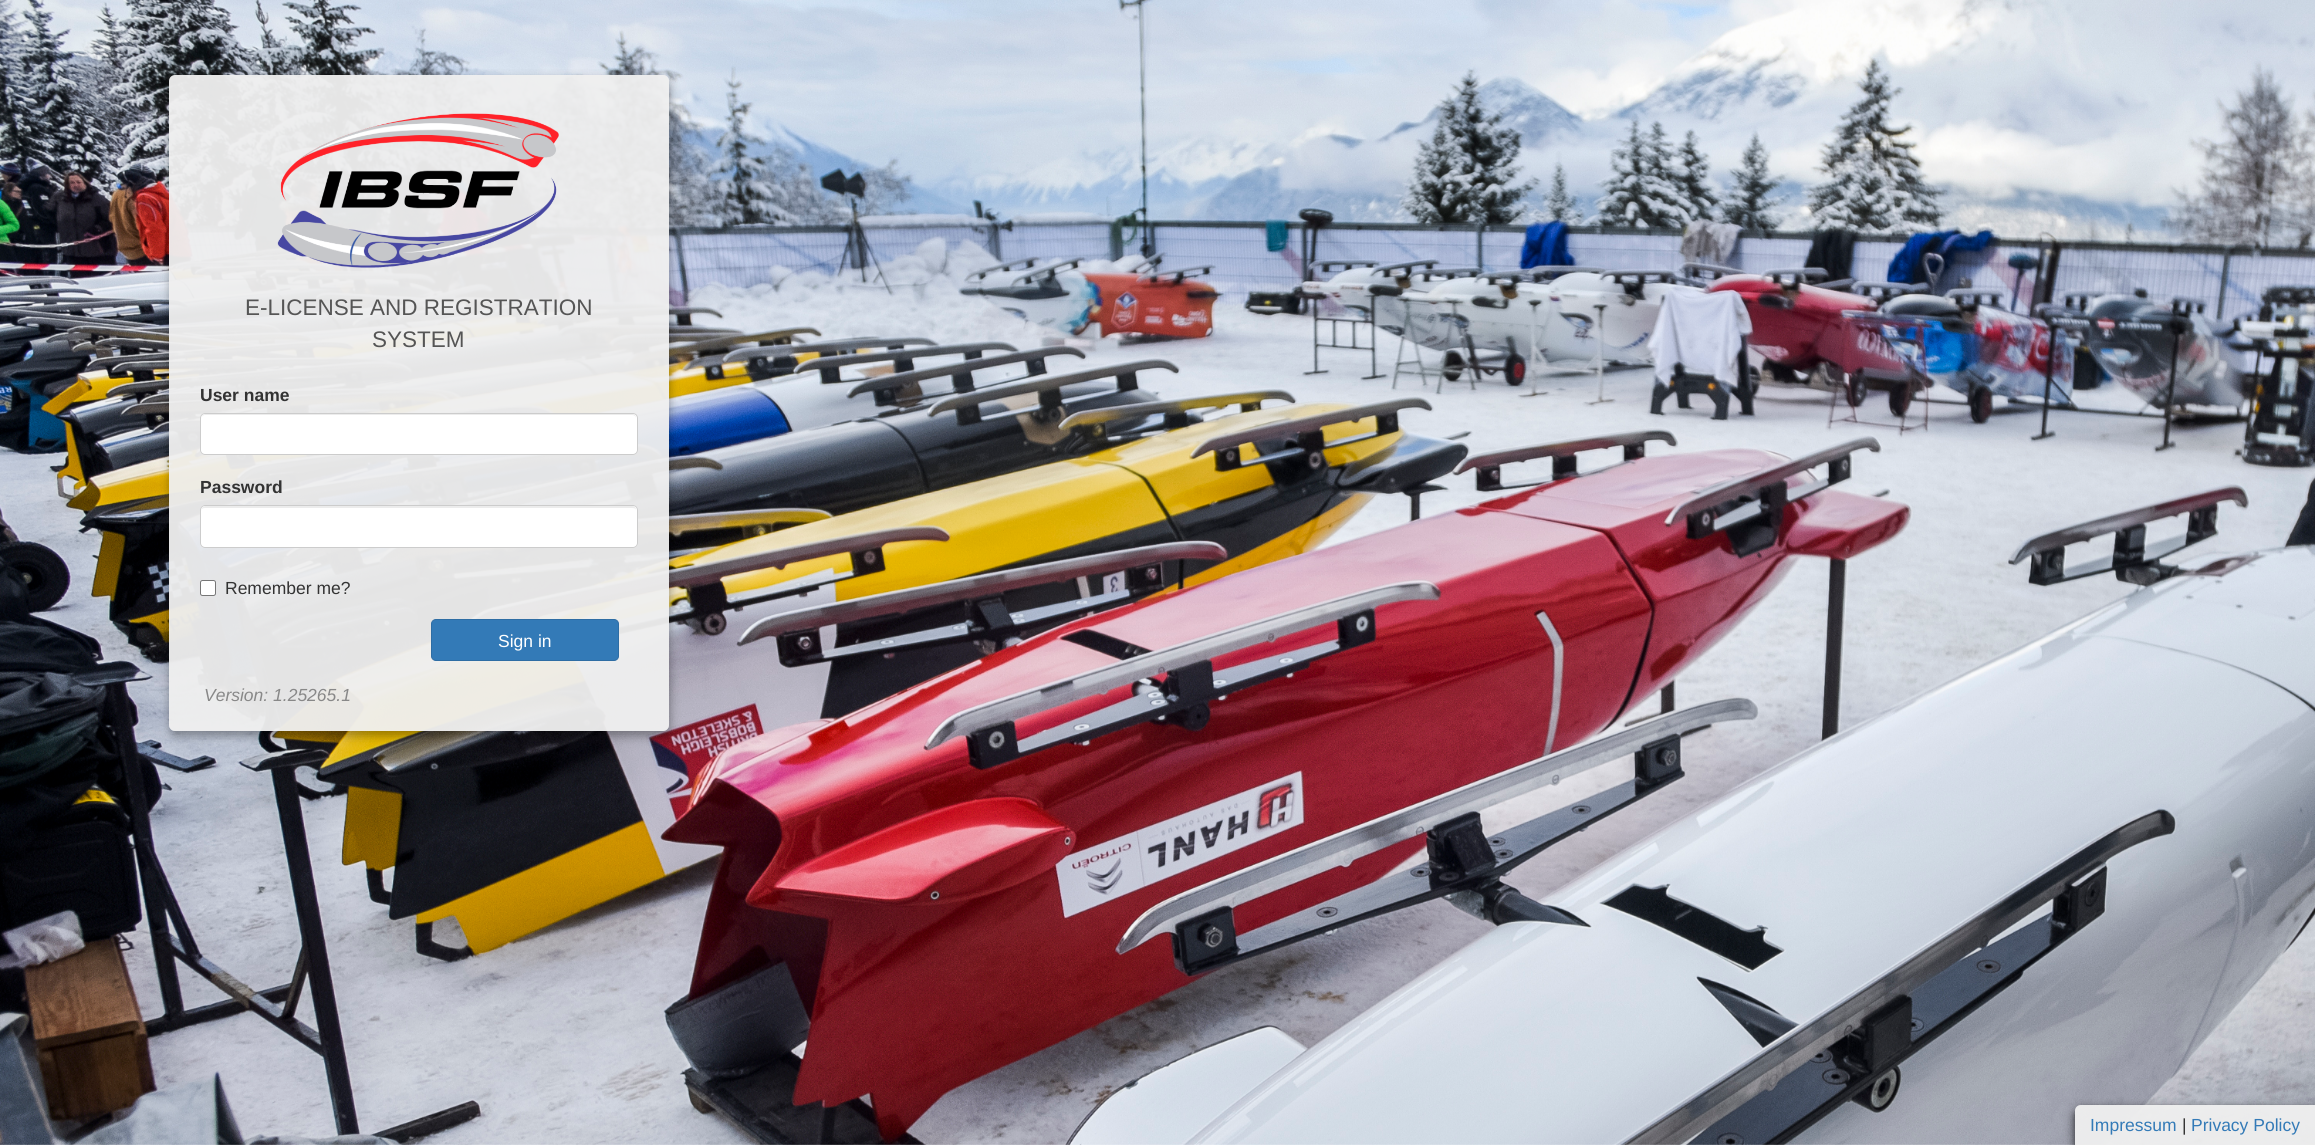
#include <cairo/cairo.h>
#include <math.h>
#include <stddef.h>

static cairo_t *cr;

static void use_color(int r, int g, int b) {
  cairo_set_source_rgb(cr, r / 255.0, g / 255.0, b / 255.0);
}

static void text(double x, double y, const char *s, const char *family, double size, int italic, int bold, int r, int g, int b) {
  cairo_select_font_face(cr, family, italic ? CAIRO_FONT_SLANT_ITALIC : CAIRO_FONT_SLANT_NORMAL,
    bold ? CAIRO_FONT_WEIGHT_BOLD : CAIRO_FONT_WEIGHT_NORMAL);
  cairo_set_font_size(cr, size);
  use_color(r, g, b);
  cairo_move_to(cr, x, y);
  cairo_show_text(cr, s);
}

static void round_rect(double x, double y, double w, double h, double r) {
  cairo_new_sub_path(cr);
  cairo_arc(cr, x + w - r, y + h - r, r, 0, M_PI / 2);
  cairo_arc(cr, x + r, y + h - r, r, M_PI / 2, M_PI);
  cairo_arc(cr, x + r, y + r, r, M_PI, 1.5 * M_PI);
  cairo_arc(cr, x + w - r, y + r, r, 1.5 * M_PI, 2 * M_PI);
  cairo_close_path(cr);
}

static void shadow(double x, double y, double w, double h, double r, double blur, double alpha) {
  cairo_push_group_with_content(cr, CAIRO_CONTENT_ALPHA);
  cairo_set_operator(cr, CAIRO_OPERATOR_SOURCE);
  for (int i = 15; i >= -15 && fmin(w, h) + blur * i / 3 > 0; i -= 2) {
    double e = blur * i / 6;
    cairo_set_source_rgba(cr, 0, 0, 0, alpha * erfc((i - 1) / 8.5) / 2);
    round_rect(x - e, y - e, w + 2 * e, h + 2 * e, fmax(0, fmin(r + e + blur * .6, fmin(w, h) / 2 + e)));
    cairo_fill(cr);
  }
  cairo_pattern_t *soft = cairo_pop_group(cr);
  cairo_mask(cr, soft);
  cairo_pattern_destroy(soft);
}

static void picture(const char *path, double x, double y, double w, double h) {
  cairo_surface_t *image = cairo_image_surface_create_from_png(path);
  cairo_save(cr);
  cairo_set_source_surface(cr, image, x, y);
  cairo_rectangle(cr, x, y, w, h);
  cairo_fill(cr);
  cairo_restore(cr);
  cairo_surface_destroy(image);
}

static void draw(void) {
  use_color(255, 255, 255);
  cairo_paint(cr);
  picture("img_01.png", 0, 0, 2315, 1145);
  cairo_save(cr);
  cairo_set_fill_rule(cr, CAIRO_FILL_RULE_EVEN_ODD);
  cairo_new_path(cr);
  cairo_move_to(cr, 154, 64);
  cairo_line_to(cr, 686, 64);
  cairo_line_to(cr, 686, 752);
  cairo_line_to(cr, 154, 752);
  cairo_close_path(cr);
  cairo_move_to(cr, 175, 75);
  cairo_line_to(cr, 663, 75);
  cairo_curve_to(cr, 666.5, 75, 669, 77.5, 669, 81);
  cairo_line_to(cr, 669, 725);
  cairo_curve_to(cr, 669, 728.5, 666.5, 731, 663, 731);
  cairo_line_to(cr, 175, 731);
  cairo_curve_to(cr, 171.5, 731, 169, 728.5, 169, 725);
  cairo_line_to(cr, 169, 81);
  cairo_curve_to(cr, 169, 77.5, 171.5, 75, 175, 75);
  cairo_close_path(cr);
  cairo_clip(cr);
  use_color(0, 0, 0);
  shadow(170, 80, 500, 656, 6, 5, 0.35);
  cairo_restore(cr);
  cairo_set_source_rgba(cr, 0.941, 0.941, 0.941, 0.95);
  round_rect(169, 75, 500, 656, 6);
  cairo_fill(cr);
  picture("img_02.png", 277, 113, 282, 155);
  use_color(255, 255, 255);
  round_rect(200, 413, 438, 42, 5);
  cairo_fill(cr);
  use_color(236, 236, 236);
  cairo_new_path(cr);
  cairo_move_to(cr, 205, 415);
  cairo_line_to(cr, 632, 415);
  cairo_curve_to(cr, 635, 415, 636, 417, 636, 419);
  cairo_curve_to(cr, 636, 416, 635, 414, 632, 414);
  cairo_line_to(cr, 205, 414);
  cairo_line_to(cr, 203, 415);
  cairo_line_to(cr, 202, 416);
  cairo_line_to(cr, 201, 419);
  cairo_curve_to(cr, 201, 417, 203, 415, 205, 415);
  cairo_close_path(cr);
  cairo_fill(cr);
  round_rect(200.5, 413.5, 437, 41, 4.5);
  use_color(204, 204, 204);
  cairo_set_line_width(cr, 1);
  cairo_stroke(cr);
  use_color(255, 255, 255);
  round_rect(200, 505, 438, 43, 5);
  cairo_fill(cr);
  use_color(236, 236, 236);
  cairo_new_path(cr);
  cairo_move_to(cr, 205, 508);
  cairo_line_to(cr, 632, 508);
  cairo_curve_to(cr, 635, 508, 636, 509, 636, 511);
  cairo_curve_to(cr, 636, 508, 635, 506, 632, 506);
  cairo_line_to(cr, 205, 506);
  cairo_line_to(cr, 203, 507);
  cairo_line_to(cr, 202, 508);
  cairo_line_to(cr, 201, 511);
  cairo_curve_to(cr, 201, 509, 203, 508, 205, 508);
  cairo_close_path(cr);
  cairo_fill(cr);
  round_rect(200.5, 505.5, 437, 42, 4.5);
  use_color(204, 204, 204);
  cairo_stroke(cr);
  use_color(255, 255, 255);
  round_rect(200.5, 580.5, 15, 15, 2);
  cairo_fill_preserve(cr);
  use_color(118, 118, 118);
  cairo_stroke(cr);
  use_color(51, 122, 183);
  round_rect(431.5, 619.5, 187, 41, 4.5);
  cairo_fill_preserve(cr);
  use_color(46, 109, 164);
  cairo_stroke(cr);
  cairo_save(cr);
  cairo_set_fill_rule(cr, CAIRO_FILL_RULE_EVEN_ODD);
  cairo_new_path(cr);
  cairo_move_to(cr, 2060, 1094);
  cairo_line_to(cr, 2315, 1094);
  cairo_line_to(cr, 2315, 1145);
  cairo_line_to(cr, 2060, 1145);
  cairo_close_path(cr);
  cairo_move_to(cr, 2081, 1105);
  cairo_line_to(cr, 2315, 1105);
  cairo_line_to(cr, 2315, 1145);
  cairo_line_to(cr, 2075, 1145);
  cairo_line_to(cr, 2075, 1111);
  cairo_curve_to(cr, 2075, 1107.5, 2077.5, 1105, 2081, 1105);
  cairo_close_path(cr);
  cairo_clip(cr);
  use_color(0, 0, 0);
  shadow(2076, 1110, 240, 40, 6, 5, 1);
  cairo_restore(cr);
  cairo_set_source_rgba(cr, 0.941, 0.941, 0.941, 0.95);
  cairo_new_path(cr);
  cairo_move_to(cr, 2081, 1105);
  cairo_line_to(cr, 2315, 1105);
  cairo_line_to(cr, 2315, 1145);
  cairo_line_to(cr, 2075, 1145);
  cairo_line_to(cr, 2075, 1111);
  cairo_curve_to(cr, 2075, 1107.5, 2077.5, 1105, 2081, 1105);
  cairo_close_path(cr);
  cairo_fill(cr);
  text(245, 315, "E-LICENSE AND REGISTRATION", "Liberation Sans", 22.5, 0, 0, 85, 85, 85);
  text(372, 347, "SYSTEM", "Liberation Sans", 22.5, 0, 0, 85, 85, 85);
  text(200, 401, "User name", "Liberation Sans", 17.5, 0, 1, 51, 51, 51);
  text(200, 493, "Password", "Liberation Sans", 17.5, 0, 1, 51, 51, 51);
  text(225, 594, "Remember me?", "Liberation Sans", 17.5, 0, 0, 51, 51, 51);
  text(498, 647, "Sign in", "Liberation Sans", 17.5, 0, 0, 255, 255, 255);
  text(204, 701, "Version: 1.25265.1", "Liberation Sans", 17.5, 1, 0, 136, 136, 136);
  text(2090, 1131, "Impressum", "Liberation Sans", 17.5, 0, 0, 51, 122, 183);
  text(2182, 1131, "|", "Liberation Sans", 17.5, 0, 0, 51, 51, 51);
  text(2191, 1131, "Privacy Policy", "Liberation Sans", 17.5, 0, 0, 51, 122, 183);
}

int main(void) {
  cairo_surface_t *surface = cairo_image_surface_create(CAIRO_FORMAT_RGB24, 2315, 1145);
  cr = cairo_create(surface);
  cairo_font_options_t *options = cairo_font_options_create();
  cairo_font_options_set_hint_metrics(options, CAIRO_HINT_METRICS_OFF);
  cairo_font_options_set_hint_style(options, CAIRO_HINT_STYLE_NONE);
  cairo_set_font_options(cr, options);
  cairo_set_miter_limit(cr, 4);
  draw();
  cairo_surface_write_to_png(surface, "out.png");
  cairo_font_options_destroy(options);
  cairo_destroy(cr);
  cairo_surface_destroy(surface);
  return 0;
}
